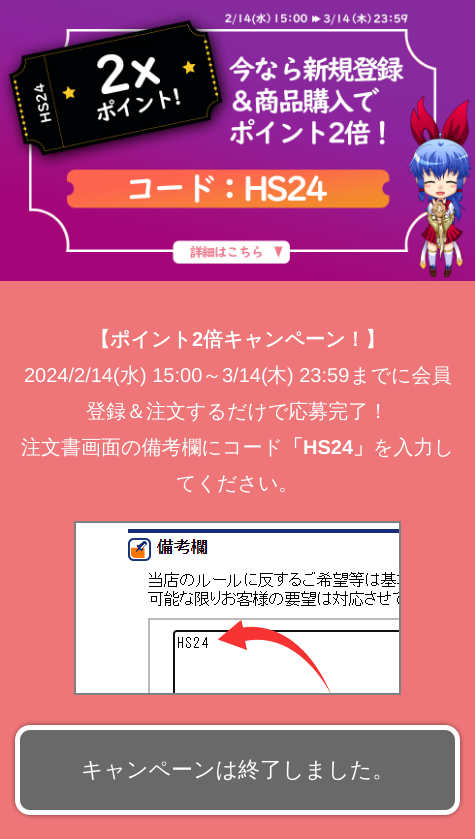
#include <cairo/cairo.h>
#include <math.h>
#include <stddef.h>

static cairo_t *cr;

static void use_color(int r, int g, int b) {
  cairo_set_source_rgb(cr, r / 255.0, g / 255.0, b / 255.0);
}

static void text(double x, double y, const char *s, const char *family, double size, int italic, int bold, int r, int g, int b) {
  cairo_select_font_face(cr, family, italic ? CAIRO_FONT_SLANT_ITALIC : CAIRO_FONT_SLANT_NORMAL,
    bold ? CAIRO_FONT_WEIGHT_BOLD : CAIRO_FONT_WEIGHT_NORMAL);
  cairo_set_font_size(cr, size);
  use_color(r, g, b);
  cairo_move_to(cr, x, y);
  cairo_show_text(cr, s);
}

static void round_rect(double x, double y, double w, double h, double r) {
  cairo_new_sub_path(cr);
  cairo_arc(cr, x + w - r, y + h - r, r, 0, M_PI / 2);
  cairo_arc(cr, x + r, y + h - r, r, M_PI / 2, M_PI);
  cairo_arc(cr, x + r, y + r, r, M_PI, 1.5 * M_PI);
  cairo_arc(cr, x + w - r, y + r, r, 1.5 * M_PI, 2 * M_PI);
  cairo_close_path(cr);
}

static void shadow(double x, double y, double w, double h, double r, double blur, double alpha) {
  cairo_push_group_with_content(cr, CAIRO_CONTENT_ALPHA);
  cairo_set_operator(cr, CAIRO_OPERATOR_SOURCE);
  for (int i = 15; i >= -15 && fmin(w, h) + blur * i / 3 > 0; i -= 2) {
    double e = blur * i / 6;
    cairo_set_source_rgba(cr, 0, 0, 0, alpha * erfc((i - 1) / 8.5) / 2);
    round_rect(x - e, y - e, w + 2 * e, h + 2 * e, fmax(0, fmin(r + e + blur * .6, fmin(w, h) / 2 + e)));
    cairo_fill(cr);
  }
  cairo_pattern_t *soft = cairo_pop_group(cr);
  cairo_mask(cr, soft);
  cairo_pattern_destroy(soft);
}

static void picture(const char *path, double x, double y, double w, double h) {
  cairo_surface_t *image = cairo_image_surface_create_from_png(path);
  cairo_save(cr);
  cairo_set_source_surface(cr, image, x, y);
  cairo_rectangle(cr, x, y, w, h);
  cairo_fill(cr);
  cairo_restore(cr);
  cairo_surface_destroy(image);
}

static void draw(void) {
  use_color(238, 118, 120);
  cairo_paint(cr);
  picture("img_01.png", 0, 0, 475, 281);
  cairo_rectangle(cr, 75, 522, 325, 172);
  use_color(128, 128, 128);
  cairo_stroke(cr);
  picture("img_02.png", 76, 523, 323, 170);
  use_color(0, 0, 0);
  shadow(15, 725, 445, 90, 15, 2.5, 0.5);
  use_color(105, 105, 105);
  round_rect(17.5, 727.5, 440, 85, 12.5);
  cairo_fill_preserve(cr);
  use_color(255, 255, 255);
  cairo_set_line_width(cr, 5);
  cairo_stroke(cr);
  text(90, 346, "【ポイント", "WenQuanYi Zen Hei", 20, 0, 1, 255, 255, 255);
  text(192, 346, "2", "Liberation Sans", 20, 0, 1, 255, 255, 255);
  text(203, 346, "倍キャンペーン！】", "WenQuanYi Zen Hei", 20, 0, 1, 255, 255, 255);
  text(24, 382, "2024/2/14(", "Liberation Sans", 20, 0, 0, 255, 255, 255);
  text(120, 382, "水", "WenQuanYi Zen Hei Medium", 20, 0, 0, 255, 255, 255);
  text(140, 382, ") 15:00", "Liberation Sans", 20, 0, 0, 255, 255, 255);
  text(202, 382, "～", "WenQuanYi Zen Hei Medium", 20, 0, 0, 255, 255, 255);
  text(222, 382, "3/14(", "Liberation Sans", 20, 0, 0, 255, 255, 255);
  text(267, 382, "木", "WenQuanYi Zen Hei Medium", 20, 0, 0, 255, 255, 255);
  text(287, 382, ") 23:59", "Liberation Sans", 20, 0, 0, 255, 255, 255);
  text(350, 382, "までに会員", "WenQuanYi Zen Hei Medium", 20, 0, 0, 255, 255, 255);
  text(86, 418, "登録＆注文するだけで応募完了！", "WenQuanYi Zen Hei Medium", 20, 0, 0, 255, 255, 255);
  text(21, 454, "注文書画面の備考欄にコード", "WenQuanYi Zen Hei Medium", 20, 0, 0, 255, 255, 255);
  text(283, 454, "「", "WenQuanYi Zen Hei", 20, 0, 1, 255, 255, 255);
  text(303, 454, "HS24", "Liberation Sans", 20, 0, 1, 255, 255, 255);
  text(353, 454, "」", "WenQuanYi Zen Hei", 20, 0, 1, 255, 255, 255);
  text(373, 454, "を入力し", "WenQuanYi Zen Hei Medium", 20, 0, 0, 255, 255, 255);
  text(176, 490, "てください。", "WenQuanYi Zen Hei Medium", 20, 0, 0, 255, 255, 255);
  text(81, 777, "キャンペーンは終了しました。", "WenQuanYi Zen Hei Medium", 22, 0, 0, 255, 255, 255);
}

int main(void) {
  cairo_surface_t *surface = cairo_image_surface_create(CAIRO_FORMAT_RGB24, 475, 839);
  cr = cairo_create(surface);
  cairo_font_options_t *options = cairo_font_options_create();
  cairo_font_options_set_hint_metrics(options, CAIRO_HINT_METRICS_OFF);
  cairo_font_options_set_hint_style(options, CAIRO_HINT_STYLE_NONE);
  cairo_set_font_options(cr, options);
  cairo_set_miter_limit(cr, 4);
  draw();
  cairo_surface_write_to_png(surface, "out.png");
  cairo_font_options_destroy(options);
  cairo_destroy(cr);
  cairo_surface_destroy(surface);
  return 0;
}
